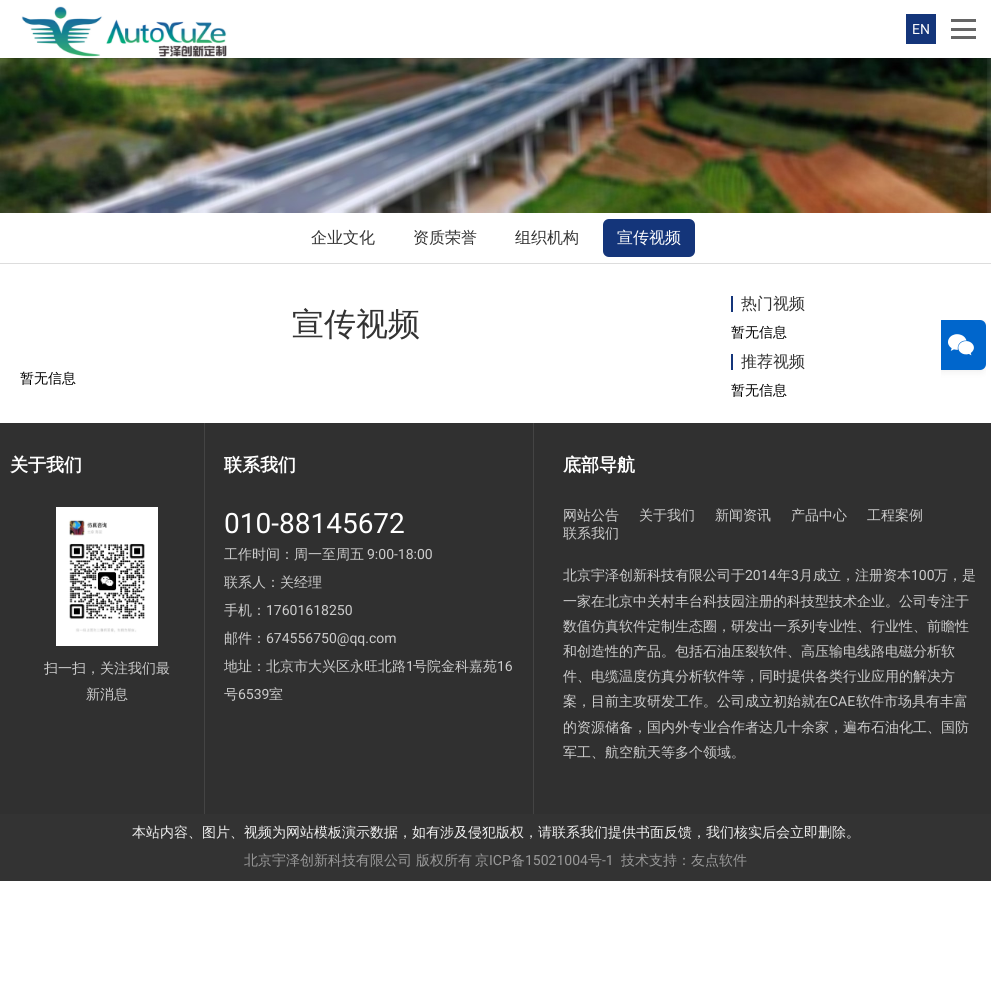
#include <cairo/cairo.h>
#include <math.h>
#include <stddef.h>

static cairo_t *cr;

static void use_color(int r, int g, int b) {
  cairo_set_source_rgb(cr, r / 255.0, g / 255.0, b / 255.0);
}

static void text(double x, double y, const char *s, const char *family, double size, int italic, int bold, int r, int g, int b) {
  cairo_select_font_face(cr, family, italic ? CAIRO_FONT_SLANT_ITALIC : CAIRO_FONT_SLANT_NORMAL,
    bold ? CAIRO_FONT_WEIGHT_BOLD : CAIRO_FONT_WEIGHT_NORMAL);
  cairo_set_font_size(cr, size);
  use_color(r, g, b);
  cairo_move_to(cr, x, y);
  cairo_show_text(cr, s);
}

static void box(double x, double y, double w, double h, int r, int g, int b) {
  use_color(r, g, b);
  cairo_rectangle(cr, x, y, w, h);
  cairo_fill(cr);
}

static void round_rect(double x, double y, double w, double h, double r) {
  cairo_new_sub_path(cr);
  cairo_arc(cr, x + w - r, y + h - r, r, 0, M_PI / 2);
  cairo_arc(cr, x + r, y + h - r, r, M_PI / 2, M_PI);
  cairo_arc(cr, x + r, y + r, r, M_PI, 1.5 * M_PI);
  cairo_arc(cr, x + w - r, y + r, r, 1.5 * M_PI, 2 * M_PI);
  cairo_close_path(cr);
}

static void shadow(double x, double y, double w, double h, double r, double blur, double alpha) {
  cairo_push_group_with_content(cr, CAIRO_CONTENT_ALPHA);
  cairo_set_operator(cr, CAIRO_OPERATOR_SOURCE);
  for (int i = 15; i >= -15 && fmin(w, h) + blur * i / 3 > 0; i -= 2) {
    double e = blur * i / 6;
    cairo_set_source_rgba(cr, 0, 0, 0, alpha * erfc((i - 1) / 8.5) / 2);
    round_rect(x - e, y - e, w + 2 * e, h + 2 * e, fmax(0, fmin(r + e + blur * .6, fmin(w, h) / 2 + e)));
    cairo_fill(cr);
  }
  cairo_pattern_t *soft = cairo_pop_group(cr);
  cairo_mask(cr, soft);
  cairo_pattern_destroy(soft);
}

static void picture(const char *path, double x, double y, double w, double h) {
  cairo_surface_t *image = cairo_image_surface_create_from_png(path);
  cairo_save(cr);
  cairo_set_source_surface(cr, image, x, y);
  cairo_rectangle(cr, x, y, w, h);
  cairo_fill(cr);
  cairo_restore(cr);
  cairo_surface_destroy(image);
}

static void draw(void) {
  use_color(255, 255, 255);
  cairo_paint(cr);
  picture("img_02.png", 0, 58, 991, 155);
  cairo_save(cr);
  cairo_rectangle(cr, 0, 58, 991, 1);
  cairo_clip(cr);
  use_color(0, 0, 0);
  shadow(0, 1, 991, 58, 0, 0.5, 0.1);
  cairo_restore(cr);
  picture("img_01.png", 21, 6, 206, 51);
  box(906, 14, 30, 30, 20, 53, 122);
  box(951, 19, 25, 3, 102, 102, 102);
  box(951, 36, 25, 3, 102, 102, 102);
  box(951, 28, 25, 3, 102, 102, 102);
  box(0, 263, 991, 1, 221, 221, 221);
  use_color(20, 53, 122);
  round_rect(603, 219, 92, 38, 6);
  cairo_fill(cr);
  box(731, 296, 2, 16, 20, 53, 122);
  box(731, 354, 2, 16, 20, 53, 122);
  cairo_save(cr);
  cairo_rectangle(cr, 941, 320, 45, 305);
  cairo_clip(cr);
  use_color(0, 0, 0);
  shadow(936, 320, 50, 50, 6, 4.5, 0.1);
  cairo_restore(cr);
  cairo_save(cr);
  cairo_rectangle(cr, 941, 320, 45, 305);
  cairo_clip(cr);
  use_color(0, 102, 204);
  round_rect(936, 320, 50, 50, 6);
  cairo_fill(cr);
  cairo_restore(cr);
  picture("img_03.png", 948, 334, 26, 22);
  box(0, 423, 991, 391, 48, 48, 48);
  picture("img_04.png", 56, 507, 102, 139);
  box(204, 423, 1, 391, 68, 68, 68);
  box(533, 423, 1, 391, 68, 68, 68);
  box(0, 814, 991, 67, 51, 51, 51);
  text(912, 34, "EN", "Roboto", 14, 0, 0, 255, 255, 255);
  text(311, 243, "企业文化", "WenQuanYi Zen Hei Medium", 16, 0, 0, 51, 51, 51);
  text(413, 243, "资质荣誉", "WenQuanYi Zen Hei Medium", 16, 0, 0, 51, 51, 51);
  text(515, 243, "组织机构", "WenQuanYi Zen Hei Medium", 16, 0, 0, 51, 51, 51);
  text(617, 243, "宣传视频", "WenQuanYi Zen Hei Medium", 16, 0, 0, 255, 255, 255);
  text(292, 335, "宣传视频", "WenQuanYi Zen Hei Medium", 32, 0, 0, 51, 51, 51);
  text(20, 383, "暂无信息", "WenQuanYi Zen Hei Medium", 14, 0, 0, 0, 0, 0);
  text(741, 309, "热门视频", "WenQuanYi Zen Hei Medium", 16, 0, 0, 51, 51, 51);
  text(731, 337, "暂无信息", "WenQuanYi Zen Hei Medium", 14, 0, 0, 0, 0, 0);
  text(741, 367, "推荐视频", "WenQuanYi Zen Hei Medium", 16, 0, 0, 51, 51, 51);
  text(731, 395, "暂无信息", "WenQuanYi Zen Hei Medium", 14, 0, 0, 0, 0, 0);
  text(10, 471, "关于我们", "WenQuanYi Zen Hei", 18, 0, 1, 255, 255, 255);
  text(44, 673, "扫一扫，关注我们最", "WenQuanYi Zen Hei Medium", 14, 0, 0, 204, 204, 204);
  text(86, 699, "新消息", "WenQuanYi Zen Hei Medium", 14, 0, 0, 204, 204, 204);
  text(224, 471, "联系我们", "WenQuanYi Zen Hei", 18, 0, 1, 255, 255, 255);
  text(224, 533, "010-88145672", "Roboto", 28, 0, 0, 255, 255, 255);
  text(224, 559, "工作时间：周一至周五", "WenQuanYi Zen Hei Medium", 14, 0, 0, 204, 204, 204);
  text(367, 559, "9:00-18:00", "Roboto", 14, 0, 0, 204, 204, 204);
  text(224, 587, "联系人：关经理", "WenQuanYi Zen Hei Medium", 14, 0, 0, 204, 204, 204);
  text(224, 615, "手机：", "WenQuanYi Zen Hei Medium", 14, 0, 0, 204, 204, 204);
  text(266, 615, "17601618250", "Roboto", 14, 0, 0, 204, 204, 204);
  text(224, 643, "邮件：", "WenQuanYi Zen Hei Medium", 14, 0, 0, 204, 204, 204);
  text(266, 643, "674556750@qq.com", "Roboto", 14, 0, 0, 204, 204, 204);
  text(224, 671, "地址：北京市大兴区永旺北路", "WenQuanYi Zen Hei Medium", 14, 0, 0, 204, 204, 204);
  text(406, 671, "1", "Roboto", 14, 0, 0, 204, 204, 204);
  text(413, 671, "号院金科嘉苑", "WenQuanYi Zen Hei Medium", 14, 0, 0, 204, 204, 204);
  text(497, 671, "16", "Roboto", 14, 0, 0, 204, 204, 204);
  text(224, 699, "号", "WenQuanYi Zen Hei Medium", 14, 0, 0, 204, 204, 204);
  text(238, 699, "6539", "Roboto", 14, 0, 0, 204, 204, 204);
  text(269, 699, "室", "WenQuanYi Zen Hei Medium", 14, 0, 0, 204, 204, 204);
  text(563, 471, "底部导航", "WenQuanYi Zen Hei", 18, 0, 1, 255, 255, 255);
  text(563, 520, "网站公告", "WenQuanYi Zen Hei Medium", 14, 0, 0, 204, 204, 204);
  text(639, 520, "关于我们", "WenQuanYi Zen Hei Medium", 14, 0, 0, 204, 204, 204);
  text(715, 520, "新闻资讯", "WenQuanYi Zen Hei Medium", 14, 0, 0, 204, 204, 204);
  text(791, 520, "产品中心", "WenQuanYi Zen Hei Medium", 14, 0, 0, 204, 204, 204);
  text(867, 520, "工程案例", "WenQuanYi Zen Hei Medium", 14, 0, 0, 204, 204, 204);
  text(563, 538, "联系我们", "WenQuanYi Zen Hei Medium", 14, 0, 0, 204, 204, 204);
  text(563, 580, "北京宇泽创新科技有限公司于", "WenQuanYi Zen Hei Medium", 14, 0, 0, 204, 204, 204);
  text(745, 580, "2014", "Roboto", 14, 0, 0, 204, 204, 204);
  text(777, 580, "年", "WenQuanYi Zen Hei Medium", 14, 0, 0, 204, 204, 204);
  text(791, 580, "3", "Roboto", 14, 0, 0, 204, 204, 204);
  text(799, 580, "月成立，注册资本", "WenQuanYi Zen Hei Medium", 14, 0, 0, 204, 204, 204);
  text(911, 580, "100", "Roboto", 14, 0, 0, 204, 204, 204);
  text(934, 580, "万，是", "WenQuanYi Zen Hei Medium", 14, 0, 0, 204, 204, 204);
  text(563, 606, "一家在北京中关村丰台科技园注册的科技型技术企业。公司专注于", "WenQuanYi Zen Hei Medium", 14, 0, 0, 204, 204, 204);
  text(563, 631, "数值仿真软件定制生态圈，研发出一系列专业性、行业性、前瞻性", "WenQuanYi Zen Hei Medium", 14, 0, 0, 204, 204, 204);
  text(563, 656, "和创造性的产品。包括石油压裂软件、高压输电线路电磁分析软", "WenQuanYi Zen Hei Medium", 14, 0, 0, 204, 204, 204);
  text(563, 681, "件、电缆温度仿真分析软件等，同时提供各类行业应用的解决方", "WenQuanYi Zen Hei Medium", 14, 0, 0, 204, 204, 204);
  text(563, 706, "案，目前主攻研发工作。公司成立初始就在", "WenQuanYi Zen Hei Medium", 14, 0, 0, 204, 204, 204);
  text(829, 706, "CAE", "Roboto", 14, 0, 0, 204, 204, 204);
  text(856, 706, "软件市场具有丰富", "WenQuanYi Zen Hei Medium", 14, 0, 0, 204, 204, 204);
  text(563, 732, "的资源储备，国内外专业合作者达几十余家，遍布石油化工、国防", "WenQuanYi Zen Hei Medium", 14, 0, 0, 204, 204, 204);
  text(563, 757, "军工、航空航天等多个领域。", "WenQuanYi Zen Hei Medium", 14, 0, 0, 204, 204, 204);
  text(132, 837, "本站内容、图片、视频为网站模板演示数据，如有涉及侵犯版权，请联系我们提供书面反馈，我们核实后会立即删除。", "WenQuanYi Zen Hei Medium", 14, 0, 0, 240, 240, 240);
  text(244, 865, "北京宇泽创新科技有限公司", "WenQuanYi Zen Hei Medium", 14, 0, 0, 153, 153, 153);
  text(416, 865, "版权所有", "WenQuanYi Zen Hei Medium", 14, 0, 0, 153, 153, 153);
  text(475, 865, "京", "WenQuanYi Zen Hei Medium", 14, 0, 0, 153, 153, 153);
  text(489, 865, "ICP", "Roboto", 14, 0, 0, 153, 153, 153);
  text(511, 865, "备", "WenQuanYi Zen Hei Medium", 14, 0, 0, 153, 153, 153);
  text(525, 865, "15021004", "Roboto", 14, 0, 0, 153, 153, 153);
  text(588, 865, "号", "WenQuanYi Zen Hei Medium", 14, 0, 0, 153, 153, 153);
  text(602, 865, "-1", "Roboto", 14, 0, 0, 153, 153, 153);
  text(621, 865, "技术支持：友点软件", "WenQuanYi Zen Hei Medium", 14, 0, 0, 153, 153, 153);
}

int main(void) {
  cairo_surface_t *surface = cairo_image_surface_create(CAIRO_FORMAT_RGB24, 991, 995);
  cr = cairo_create(surface);
  cairo_font_options_t *options = cairo_font_options_create();
  cairo_font_options_set_hint_metrics(options, CAIRO_HINT_METRICS_OFF);
  cairo_font_options_set_hint_style(options, CAIRO_HINT_STYLE_NONE);
  cairo_set_font_options(cr, options);
  cairo_set_miter_limit(cr, 4);
  draw();
  cairo_surface_write_to_png(surface, "out.png");
  cairo_font_options_destroy(options);
  cairo_destroy(cr);
  cairo_surface_destroy(surface);
  return 0;
}
